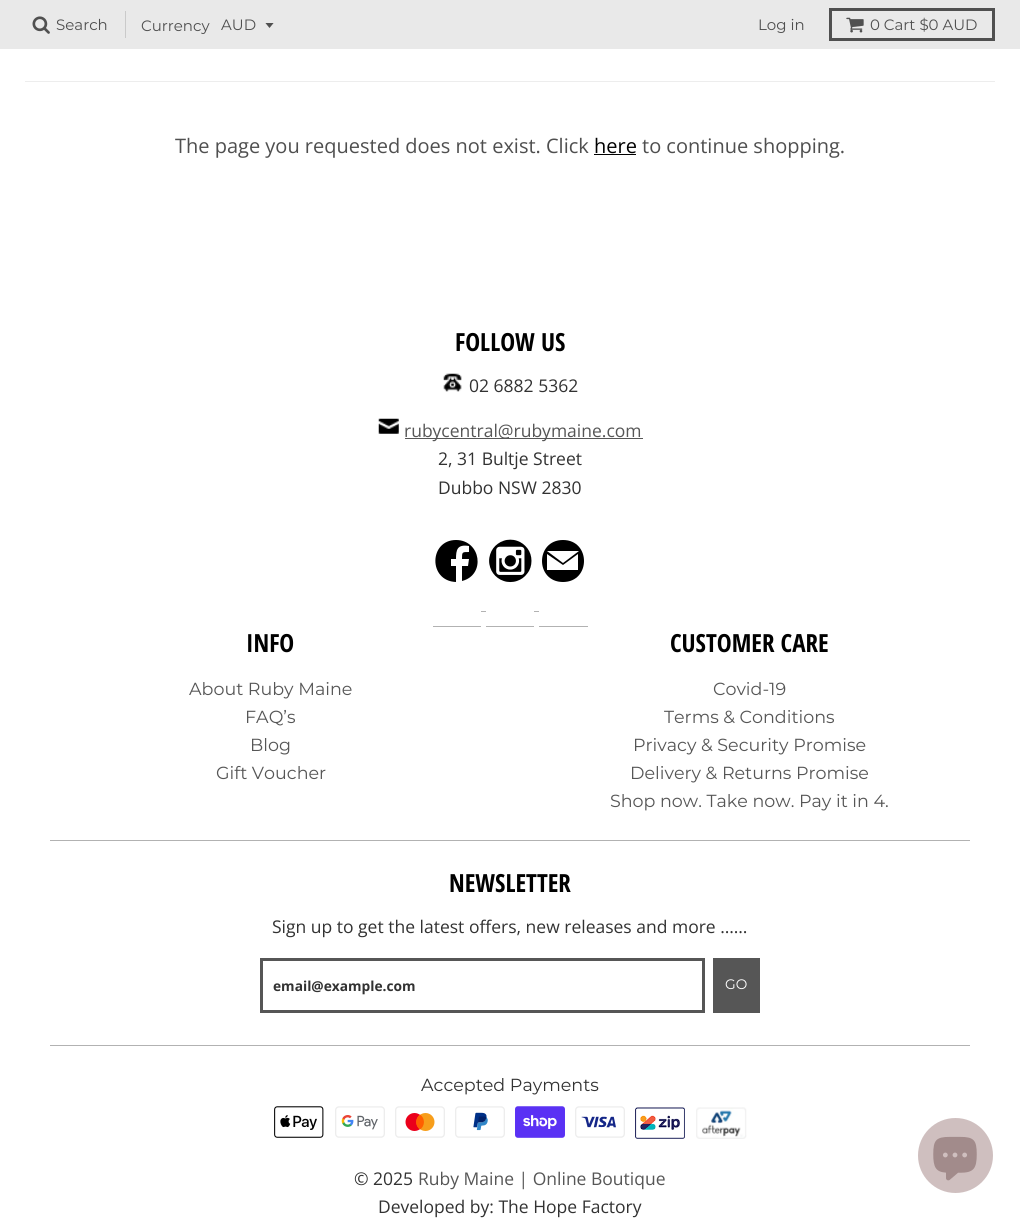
#include <cairo/cairo.h>
#include <math.h>
#include <stddef.h>

static cairo_t *cr;

static void use_color(int r, int g, int b) {
  cairo_set_source_rgb(cr, r / 255.0, g / 255.0, b / 255.0);
}

static void text(double x, double y, const char *s, const char *family, double size, int italic, int bold, int r, int g, int b) {
  cairo_select_font_face(cr, family, italic ? CAIRO_FONT_SLANT_ITALIC : CAIRO_FONT_SLANT_NORMAL,
    bold ? CAIRO_FONT_WEIGHT_BOLD : CAIRO_FONT_WEIGHT_NORMAL);
  cairo_set_font_size(cr, size);
  use_color(r, g, b);
  cairo_move_to(cr, x, y);
  cairo_show_text(cr, s);
}

static void box(double x, double y, double w, double h, int r, int g, int b) {
  use_color(r, g, b);
  cairo_rectangle(cr, x, y, w, h);
  cairo_fill(cr);
}

static void picture(const char *path, double x, double y, double w, double h) {
  cairo_surface_t *image = cairo_image_surface_create_from_png(path);
  cairo_save(cr);
  cairo_set_source_surface(cr, image, x, y);
  cairo_rectangle(cr, x, y, w, h);
  cairo_fill(cr);
  cairo_restore(cr);
  cairo_surface_destroy(image);
}

static void draw(void) {
  use_color(255, 255, 255);
  cairo_paint(cr);
  box(0, 0, 1020, 49, 233, 233, 233);
  picture("img_01.png", 32, 16, 18, 18);
  box(125, 11, 1, 27, 202, 202, 202);
  cairo_save(cr);
  cairo_rectangle(cr, 265, 23, 10, 6);
  cairo_clip(cr);
  use_color(80, 80, 80);
  cairo_new_path(cr);
  cairo_move_to(cr, 265, 22.5);
  cairo_line_to(cr, 269.5, 28);
  cairo_line_to(cr, 274, 22.5);
  cairo_close_path(cr);
  cairo_fill(cr);
  cairo_restore(cr);
  cairo_rectangle(cr, 830.5, 9.5, 163, 30);
  use_color(80, 80, 80);
  cairo_set_line_width(cr, 3);
  cairo_stroke(cr);
  picture("img_02.png", 846, 17, 18, 16);
  box(25, 81, 970, 1, 237, 237, 237);
  box(594, 154, 42, 1, 0, 0, 0);
  picture("img_03.png", 443, 373, 19, 19);
  picture("img_04.png", 378, 418, 21, 16);
  box(405, 438, 238, 1, 86, 86, 86);
  box(433, 626, 48, 1, 178, 178, 178);
  box(481, 611, 5, 1, 178, 178, 178);
  box(486, 626, 48, 1, 178, 178, 178);
  box(534, 611, 5, 1, 178, 178, 178);
  box(539, 626, 49, 1, 178, 178, 178);
  use_color(0, 0, 0);
  cairo_new_path(cr);
  cairo_move_to(cr, 456, 540);
  cairo_curve_to(cr, 481, 540, 486, 575, 462, 581);
  cairo_line_to(cr, 462, 566);
  cairo_line_to(cr, 468, 566);
  cairo_line_to(cr, 469, 559);
  cairo_line_to(cr, 462, 559);
  cairo_curve_to(cr, 462, 552, 462, 552, 469, 552);
  cairo_line_to(cr, 469, 546);
  cairo_curve_to(cr, 457, 544, 456, 550, 456, 559);
  cairo_line_to(cr, 451, 559);
  cairo_line_to(cr, 451, 566);
  cairo_line_to(cr, 456, 566);
  cairo_line_to(cr, 456, 582);
  cairo_curve_to(cr, 428, 581, 429, 540, 456, 540);
  cairo_close_path(cr);
  cairo_fill(cr);
  picture("img_05.png", 489, 539, 43, 44);
  cairo_new_path(cr);
  cairo_move_to(cr, 547, 570);
  cairo_line_to(cr, 578, 570);
  cairo_line_to(cr, 578, 554);
  cairo_line_to(cr, 563, 565);
  cairo_line_to(cr, 547, 554);
  cairo_close_path(cr);
  cairo_move_to(cr, 547, 551);
  cairo_line_to(cr, 563, 563);
  cairo_line_to(cr, 579, 551);
  cairo_close_path(cr);
  cairo_move_to(cr, 563, 540);
  cairo_curve_to(cr, 591, 540, 591, 582, 563, 582);
  cairo_curve_to(cr, 535, 582, 535, 540, 563, 540);
  cairo_close_path(cr);
  cairo_fill(cr);
  box(50, 840, 920, 1, 178, 178, 178);
  cairo_rectangle(cr, 261.5, 959.5, 442, 52);
  use_color(86, 86, 86);
  cairo_stroke(cr);
  box(713, 958, 47, 55, 86, 86, 86);
  box(50, 1045, 920, 1, 178, 178, 178);
  picture("img_06.png", 274, 1106, 50, 32);
  picture("img_07.png", 335, 1106, 50, 32);
  picture("img_08.png", 395, 1106, 50, 32);
  picture("img_09.png", 455, 1106, 50, 32);
  picture("img_10.png", 515, 1106, 50, 32);
  picture("img_11.png", 575, 1106, 50, 32);
  picture("img_12.png", 635, 1107, 50, 32);
  picture("img_13.png", 696, 1107, 51, 32);
  use_color(207, 191, 191);
  cairo_arc(cr, 955.5, 1155.5, 37.5, 0, 2 * M_PI);
  cairo_fill(cr);
  picture("img_14.png", 933, 1136, 44, 45);
  text(56, 30, "Search", "Montserrat", 15, 0, 0, 79, 79, 79);
  text(141, 31, "Currency", "Montserrat", 15, 0, 0, 79, 79, 79);
  text(221, 30, "AUD", "Montserrat", 15, 0, 0, 79, 79, 79);
  text(758, 30, "Log in", "Montserrat", 15, 0, 0, 79, 79, 79);
  text(870, 30, "0 Cart $0 AUD", "Montserrat", 15, 0, 0, 79, 79, 79);
  text(175, 153, "The page you requested does not exist. Click", "Open Sans", 20, 0, 0, 79, 79, 79);
  text(594, 153, "here", "Open Sans", 20, 0, 0, 0, 0, 0);
  text(642, 153, "to continue shopping.", "Open Sans", 20, 0, 0, 79, 79, 79);
  text(455, 351, "FOLLOW US", "Open Sans Condensed", 25, 0, 1, 0, 0, 0);
  text(469, 392, "02 6882 5362", "Open Sans", 17.5, 0, 0, 50, 50, 50);
  text(404, 437, "rubycentral@rubymaine.com", "Open Sans", 17.5, 0, 0, 86, 86, 86);
  text(438, 465, "2, 31 Bultje Street", "Open Sans", 17.5, 0, 0, 50, 50, 50);
  text(438, 494, "Dubbo NSW 2830", "Open Sans", 17.5, 0, 0, 50, 50, 50);
  text(246, 652, "INFO", "Open Sans Condensed", 25, 0, 1, 0, 0, 0);
  text(189, 695, "About Ruby Maine", "Montserrat", 17.5, 0, 0, 86, 86, 86);
  text(245, 723, "FAQ’s", "Montserrat", 17.5, 0, 0, 86, 86, 86);
  text(250, 751, "Blog", "Montserrat", 17.5, 0, 0, 86, 86, 86);
  text(216, 779, "Gift Voucher", "Montserrat", 17.5, 0, 0, 86, 86, 86);
  text(670, 652, "CUSTOMER CARE", "Open Sans Condensed", 25, 0, 1, 0, 0, 0);
  text(713, 695, "Covid-19", "Montserrat", 17.5, 0, 0, 86, 86, 86);
  text(664, 723, "Terms & Conditions", "Montserrat", 17.5, 0, 0, 86, 86, 86);
  text(633, 751, "Privacy & Security Promise", "Montserrat", 17.5, 0, 0, 86, 86, 86);
  text(630, 779, "Delivery & Returns Promise", "Montserrat", 17.5, 0, 0, 86, 86, 86);
  text(610, 807, "Shop now. Take now. Pay it in 4.", "Montserrat", 17.5, 0, 0, 86, 86, 86);
  text(449, 892, "NEWSLETTER", "Open Sans Condensed", 25, 0, 1, 0, 0, 0);
  text(272, 933, "Sign up to get the latest offers, new releases and more ……", "Open Sans", 17.5, 0, 0, 50, 50, 50);
  text(273, 991, "email@example.com", "Open Sans", 13.75, 0, 1, 50, 50, 50);
  text(725, 989, "GO", "Montserrat", 13.75, 0, 0, 255, 255, 255);
  text(421, 1091, "Accepted Payments", "Montserrat", 17.5, 0, 0, 50, 50, 50);
  text(354, 1185, "© 2025", "Open Sans", 17.5, 0, 0, 50, 50, 50);
  text(418, 1185, "Ruby Maine | Online Boutique", "Open Sans", 17.5, 0, 0, 86, 86, 86);
  text(378, 1213, "Developed by: The Hope Factory", "Open Sans", 17.5, 0, 0, 50, 50, 50);
}

int main(void) {
  cairo_surface_t *surface = cairo_image_surface_create(CAIRO_FORMAT_RGB24, 1020, 1218);
  cr = cairo_create(surface);
  cairo_font_options_t *options = cairo_font_options_create();
  cairo_font_options_set_hint_metrics(options, CAIRO_HINT_METRICS_OFF);
  cairo_font_options_set_hint_style(options, CAIRO_HINT_STYLE_NONE);
  cairo_set_font_options(cr, options);
  cairo_set_miter_limit(cr, 4);
  draw();
  cairo_surface_write_to_png(surface, "out.png");
  cairo_font_options_destroy(options);
  cairo_destroy(cr);
  cairo_surface_destroy(surface);
  return 0;
}
